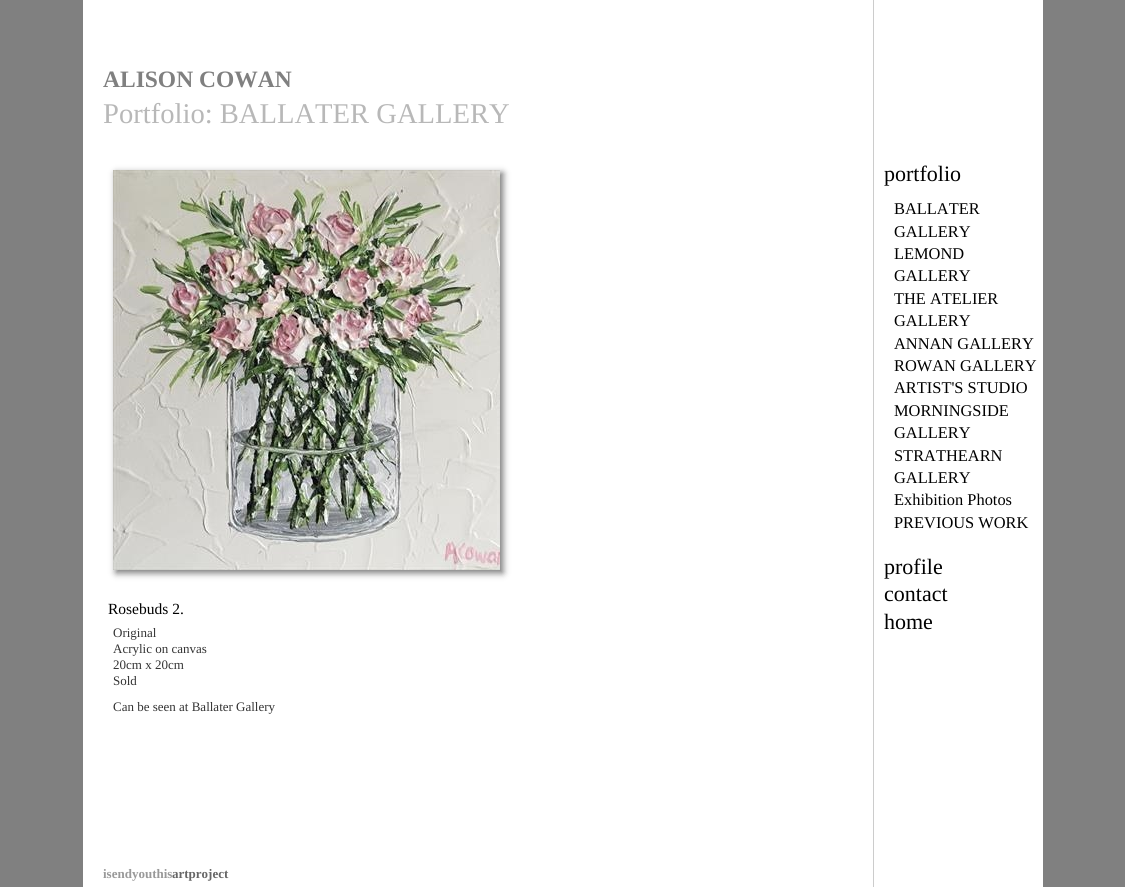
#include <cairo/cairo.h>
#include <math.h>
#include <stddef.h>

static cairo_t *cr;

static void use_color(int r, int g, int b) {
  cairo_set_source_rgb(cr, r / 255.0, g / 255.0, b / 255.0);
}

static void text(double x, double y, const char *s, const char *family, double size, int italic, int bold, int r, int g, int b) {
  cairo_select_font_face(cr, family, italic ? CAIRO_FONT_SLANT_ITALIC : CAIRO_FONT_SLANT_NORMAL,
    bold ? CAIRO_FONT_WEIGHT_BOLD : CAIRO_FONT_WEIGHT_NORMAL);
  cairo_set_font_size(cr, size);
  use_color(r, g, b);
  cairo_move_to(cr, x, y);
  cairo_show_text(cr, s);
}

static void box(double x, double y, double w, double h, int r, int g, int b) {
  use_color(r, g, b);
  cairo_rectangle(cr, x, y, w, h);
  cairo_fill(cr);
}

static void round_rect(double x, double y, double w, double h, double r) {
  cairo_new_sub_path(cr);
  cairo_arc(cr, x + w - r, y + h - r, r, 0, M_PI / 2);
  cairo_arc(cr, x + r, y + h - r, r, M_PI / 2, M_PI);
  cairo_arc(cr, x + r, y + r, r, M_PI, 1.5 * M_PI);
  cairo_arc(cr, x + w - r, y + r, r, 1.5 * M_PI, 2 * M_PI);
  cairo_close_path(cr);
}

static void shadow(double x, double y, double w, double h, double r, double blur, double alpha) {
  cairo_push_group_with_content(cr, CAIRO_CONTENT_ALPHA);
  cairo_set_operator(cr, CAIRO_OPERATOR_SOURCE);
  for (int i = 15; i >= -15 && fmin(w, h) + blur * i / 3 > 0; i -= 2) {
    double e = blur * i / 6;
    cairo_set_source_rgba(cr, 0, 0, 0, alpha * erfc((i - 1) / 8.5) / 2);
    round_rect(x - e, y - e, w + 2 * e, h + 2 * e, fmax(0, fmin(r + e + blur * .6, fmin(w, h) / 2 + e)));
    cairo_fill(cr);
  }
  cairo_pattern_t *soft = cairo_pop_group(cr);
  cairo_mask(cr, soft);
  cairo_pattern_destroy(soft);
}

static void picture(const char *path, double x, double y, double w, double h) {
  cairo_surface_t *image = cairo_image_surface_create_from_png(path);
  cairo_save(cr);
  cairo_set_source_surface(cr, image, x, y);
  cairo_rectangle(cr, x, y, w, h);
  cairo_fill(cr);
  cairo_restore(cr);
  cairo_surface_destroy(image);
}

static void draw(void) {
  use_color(128, 128, 128);
  cairo_paint(cr);
  box(83, 0, 790, 887, 255, 255, 255);
  use_color(119, 119, 119);
  shadow(116, 173, 387, 400, 0, 3.5, 1);
  picture("img_01.png", 113, 170, 387, 400);
  box(874, 0, 169, 887, 255, 255, 255);
  box(873, 0, 1, 887, 204, 204, 204);
  text(103, 87, "ALISON COWAN", "Liberation Serif", 23.5, 0, 1, 128, 128, 128);
  text(103, 123, "Portfolio: BALLATER GALLERY", "Liberation Serif", 28.6, 0, 0, 184, 184, 184);
  text(108, 614, "Rosebuds 2.", "Liberation Serif", 15.5, 0, 0, 0, 0, 0);
  text(113, 637, "Original", "Liberation Serif", 13, 0, 0, 51, 51, 51);
  text(113, 653, "Acrylic on canvas", "Liberation Serif", 13, 0, 0, 51, 51, 51);
  text(113, 669, "20cm x 20cm", "Liberation Serif", 13, 0, 0, 51, 51, 51);
  text(113, 685, "Sold", "Liberation Serif", 13, 0, 0, 51, 51, 51);
  text(113, 711, "Can be seen at Ballater Gallery", "Liberation Serif", 13, 0, 0, 51, 51, 51);
  text(103, 878, "isendyouthis", "Liberation Serif", 13, 0, 1, 153, 153, 153);
  text(172, 878, "artproject", "Liberation Serif", 13, 0, 1, 102, 102, 102);
  text(884, 181, "portfolio", "Liberation Serif", 22, 0, 0, 0, 0, 0);
  text(894, 214, "BALLATER", "Liberation Serif", 16.4, 0, 0, 0, 0, 0);
  text(894, 237, "GALLERY", "Liberation Serif", 16.4, 0, 0, 0, 0, 0);
  text(894, 259, "LEMOND", "Liberation Serif", 16.4, 0, 0, 0, 0, 0);
  text(894, 281, "GALLERY", "Liberation Serif", 16.4, 0, 0, 0, 0, 0);
  text(894, 304, "THE ATELIER", "Liberation Serif", 16.4, 0, 0, 0, 0, 0);
  text(894, 326, "GALLERY", "Liberation Serif", 16.4, 0, 0, 0, 0, 0);
  text(894, 349, "ANNAN GALLERY", "Liberation Serif", 16.4, 0, 0, 0, 0, 0);
  text(894, 371, "ROWAN GALLERY", "Liberation Serif", 16.4, 0, 0, 0, 0, 0);
  text(894, 393, "ARTIST'S STUDIO", "Liberation Serif", 16.4, 0, 0, 0, 0, 0);
  text(894, 416, "MORNINGSIDE", "Liberation Serif", 16.4, 0, 0, 0, 0, 0);
  text(894, 438, "GALLERY", "Liberation Serif", 16.4, 0, 0, 0, 0, 0);
  text(894, 461, "STRATHEARN", "Liberation Serif", 16.4, 0, 0, 0, 0, 0);
  text(894, 483, "GALLERY", "Liberation Serif", 16.4, 0, 0, 0, 0, 0);
  text(894, 505, "Exhibition Photos", "Liberation Serif", 16.4, 0, 0, 0, 0, 0);
  text(894, 528, "PREVIOUS WORK", "Liberation Serif", 16.4, 0, 0, 0, 0, 0);
  text(884, 574, "profile", "Liberation Serif", 22, 0, 0, 0, 0, 0);
  text(884, 601, "contact", "Liberation Serif", 22, 0, 0, 0, 0, 0);
  text(884, 629, "home", "Liberation Serif", 22, 0, 0, 0, 0, 0);
}

int main(void) {
  cairo_surface_t *surface = cairo_image_surface_create(CAIRO_FORMAT_RGB24, 1125, 887);
  cr = cairo_create(surface);
  cairo_font_options_t *options = cairo_font_options_create();
  cairo_font_options_set_hint_metrics(options, CAIRO_HINT_METRICS_OFF);
  cairo_font_options_set_hint_style(options, CAIRO_HINT_STYLE_NONE);
  cairo_set_font_options(cr, options);
  cairo_set_miter_limit(cr, 4);
  draw();
  cairo_surface_write_to_png(surface, "out.png");
  cairo_font_options_destroy(options);
  cairo_destroy(cr);
  cairo_surface_destroy(surface);
  return 0;
}
